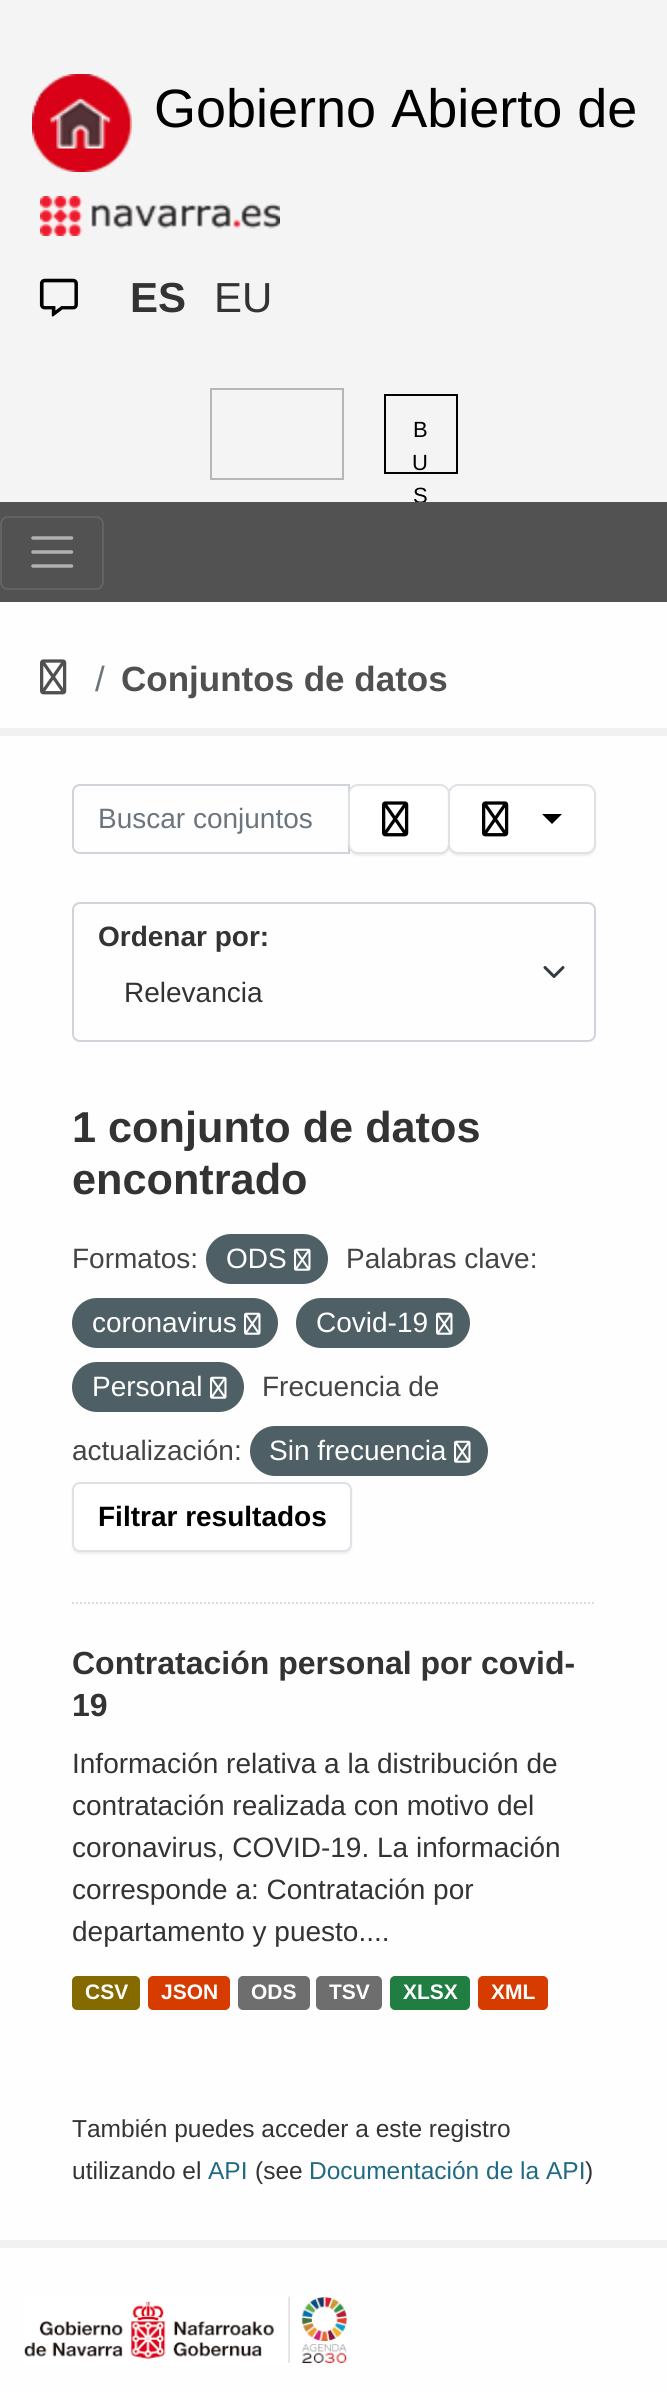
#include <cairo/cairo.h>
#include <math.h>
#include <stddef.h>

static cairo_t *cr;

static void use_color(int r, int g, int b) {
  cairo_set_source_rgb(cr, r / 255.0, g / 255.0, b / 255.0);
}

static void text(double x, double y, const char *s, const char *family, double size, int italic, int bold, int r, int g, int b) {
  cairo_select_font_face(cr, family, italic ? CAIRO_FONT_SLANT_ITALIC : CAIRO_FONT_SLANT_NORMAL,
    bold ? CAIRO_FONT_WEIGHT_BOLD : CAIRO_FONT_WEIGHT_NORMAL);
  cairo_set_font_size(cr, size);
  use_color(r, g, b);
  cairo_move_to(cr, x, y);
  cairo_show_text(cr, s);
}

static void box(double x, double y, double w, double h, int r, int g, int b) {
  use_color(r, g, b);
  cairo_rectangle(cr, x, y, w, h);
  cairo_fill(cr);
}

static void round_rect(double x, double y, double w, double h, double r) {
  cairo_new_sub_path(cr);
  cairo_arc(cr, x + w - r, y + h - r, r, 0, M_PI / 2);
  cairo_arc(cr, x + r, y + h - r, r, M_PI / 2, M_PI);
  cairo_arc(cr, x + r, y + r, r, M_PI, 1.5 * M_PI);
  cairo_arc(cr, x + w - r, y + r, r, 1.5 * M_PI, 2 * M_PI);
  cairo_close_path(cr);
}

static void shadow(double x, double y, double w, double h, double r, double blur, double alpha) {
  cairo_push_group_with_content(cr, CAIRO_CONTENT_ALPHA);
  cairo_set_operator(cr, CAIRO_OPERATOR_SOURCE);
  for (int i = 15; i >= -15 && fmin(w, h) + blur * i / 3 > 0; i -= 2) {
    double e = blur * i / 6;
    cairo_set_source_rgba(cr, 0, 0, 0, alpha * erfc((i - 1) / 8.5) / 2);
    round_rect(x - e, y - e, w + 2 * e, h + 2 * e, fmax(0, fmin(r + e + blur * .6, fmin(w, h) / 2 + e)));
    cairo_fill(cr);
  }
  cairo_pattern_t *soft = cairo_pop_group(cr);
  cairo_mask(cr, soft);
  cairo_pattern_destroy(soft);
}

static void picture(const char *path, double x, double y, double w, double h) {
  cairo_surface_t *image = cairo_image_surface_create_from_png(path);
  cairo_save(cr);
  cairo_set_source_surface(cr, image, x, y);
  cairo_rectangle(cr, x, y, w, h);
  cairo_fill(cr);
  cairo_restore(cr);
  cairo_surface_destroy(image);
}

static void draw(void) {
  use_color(244, 244, 244);
  cairo_paint(cr);
  picture("img_01.png", 32, 74, 100, 98);
  picture("img_02.png", 40, 196, 240, 40);
  picture("img_03.png", 39, 278, 39, 39);
  cairo_rectangle(cr, 211, 389, 132, 90);
  use_color(182, 182, 182);
  cairo_stroke(cr);
  cairo_rectangle(cr, 385, 395, 72, 78);
  use_color(0, 0, 0);
  cairo_stroke(cr);
  box(0, 602, 667, 1790, 254, 254, 254);
  picture("img_04.png", 24, 2296, 323, 68);
  picture("img_05.png", 40, 659, 27, 36);
  cairo_rectangle(cr, -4, 732, 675, 1512);
  use_color(241, 241, 241);
  cairo_set_line_width(cr, 8);
  cairo_stroke(cr);
  cairo_new_path(cr);
  cairo_move_to(cr, 72, 1603);
  cairo_line_to(cr, 596, 1603);
  use_color(221, 221, 221);
  cairo_set_line_width(cr, 2);
  cairo_set_dash(cr, (double[]){2, 2}, 2, 0);
  cairo_stroke(cr);
  cairo_new_path(cr);
  cairo_move_to(cr, 80, 785);
  cairo_line_to(cr, 349, 785);
  cairo_line_to(cr, 349, 853);
  cairo_line_to(cr, 80, 853);
  cairo_curve_to(cr, 76, 853, 73, 850, 73, 846);
  cairo_line_to(cr, 73, 792);
  cairo_curve_to(cr, 73, 788, 76, 785, 80, 785);
  cairo_close_path(cr);
  use_color(206, 212, 218);
  cairo_set_dash(cr, NULL, 0, 0);
  cairo_stroke(cr);
  use_color(0, 0, 0);
  shadow(348, 786, 102, 70, 10, 1, 0.07);
  use_color(255, 255, 255);
  round_rect(349, 785, 100, 68, 9);
  cairo_fill_preserve(cr);
  use_color(222, 226, 230);
  cairo_stroke(cr);
  picture("img_06.png", 382, 801, 27, 36);
  use_color(0, 0, 0);
  shadow(448, 786, 148, 70, 10, 1, 0.07);
  use_color(255, 255, 255);
  round_rect(449, 785, 146, 68, 9);
  cairo_fill_preserve(cr);
  use_color(222, 226, 230);
  cairo_stroke(cr);
  picture("img_06.png", 482, 801, 27, 36);
  use_color(0, 0, 0);
  cairo_new_path(cr);
  cairo_move_to(cr, 542, 814);
  cairo_line_to(cr, 562, 814);
  cairo_line_to(cr, 552, 824);
  cairo_close_path(cr);
  cairo_fill(cr);
  cairo_new_path(cr);
  cairo_move_to(cr, 545, 967.5);
  cairo_line_to(cr, 554, 976.5);
  cairo_line_to(cr, 563, 967.5);
  use_color(52, 58, 64);
  cairo_set_line_width(cr, 3);
  cairo_set_line_cap(cr, CAIRO_LINE_CAP_ROUND);
  cairo_set_line_join(cr, CAIRO_LINE_JOIN_ROUND);
  cairo_stroke(cr);
  round_rect(73, 903, 522, 138, 7);
  use_color(206, 212, 218);
  cairo_set_line_width(cr, 2);
  cairo_set_line_cap(cr, CAIRO_LINE_CAP_BUTT);
  cairo_set_line_join(cr, CAIRO_LINE_JOIN_MITER);
  cairo_stroke(cr);
  use_color(78, 95, 101);
  round_rect(206, 1234, 122, 50, 25);
  cairo_fill(cr);
  picture("img_07.png", 294, 1248, 17, 23);
  round_rect(72, 1298, 206, 50, 25);
  cairo_fill(cr);
  picture("img_07.png", 244, 1312, 17, 23);
  round_rect(296, 1298, 174, 50, 25);
  cairo_fill(cr);
  picture("img_07.png", 436, 1312, 17, 23);
  round_rect(72, 1362, 172, 50, 25);
  cairo_fill(cr);
  picture("img_07.png", 210, 1376, 17, 23);
  round_rect(250, 1426, 238, 50, 25);
  cairo_fill(cr);
  picture("img_07.png", 454, 1440, 17, 23);
  use_color(0, 0, 0);
  shadow(72, 1484, 280, 70, 8, 1, 0.07);
  use_color(255, 255, 255);
  round_rect(73, 1483, 278, 68, 7);
  cairo_fill_preserve(cr);
  use_color(222, 226, 230);
  cairo_stroke(cr);
  use_color(133, 106, 0);
  round_rect(72, 1976, 68, 34, 5);
  cairo_fill(cr);
  use_color(214, 59, 0);
  round_rect(148, 1976, 82, 34, 5);
  cairo_fill(cr);
  use_color(110, 110, 110);
  round_rect(238, 1976, 72, 34, 5);
  cairo_fill(cr);
  round_rect(316, 1976, 66, 34, 5);
  cairo_fill(cr);
  use_color(32, 126, 66);
  round_rect(390, 1976, 80, 34, 5);
  cairo_fill(cr);
  use_color(214, 59, 0);
  round_rect(478, 1976, 70, 34, 5);
  cairo_fill(cr);
  text(154, 127, "Gobierno Abierto de", "Liberation Sans", 54, 0, 0, 0, 0, 0);
  text(130, 312, "ES", "Liberation Sans", 42, 0, 1, 51, 51, 51);
  text(214, 312, "EU", "Liberation Sans", 42, 0, 0, 51, 51, 51);
  text(413, 437, "B", "Liberation Sans", 22, 0, 0, 0, 0, 0);
  text(412, 470, "U", "Liberation Sans", 22, 0, 0, 0, 0, 0);
  text(413, 503, "S", "Liberation Sans", 22, 0, 0, 0, 0, 0);
  box(0, 502, 667, 100, 82, 82, 82);
  round_rect(1, 517, 102, 72, 7);
  use_color(99, 99, 99);
  cairo_stroke(cr);
  cairo_new_path(cr);
  cairo_move_to(cr, 33, 538);
  cairo_line_to(cr, 71.5, 538);
  cairo_move_to(cr, 33, 552);
  cairo_line_to(cr, 71.5, 552);
  cairo_move_to(cr, 33, 566);
  cairo_line_to(cr, 71.5, 566);
  use_color(177, 177, 177);
  cairo_set_line_width(cr, 3.5);
  cairo_set_line_cap(cr, CAIRO_LINE_CAP_ROUND);
  cairo_stroke(cr);
  text(95, 691, "/", "Liberation Sans", 35, 0, 0, 108, 117, 125);
  text(121, 691, "Conjuntos de datos", "Liberation Sans", 35, 0, 1, 80, 80, 80);
  text(98, 828, "Buscar conjuntos", "Liberation Sans", 28, 0, 0, 108, 117, 125);
  text(98, 946, "Ordenar por:", "Liberation Sans", 28, 0, 1, 51, 51, 51);
  text(124, 1002, "Relevancia", "Liberation Sans", 28, 0, 0, 51, 51, 51);
  text(72, 1142, "1 conjunto de datos", "Liberation Sans", 43.25, 0, 1, 51, 51, 51);
  text(72, 1194, "encontrado", "Liberation Sans", 43.25, 0, 1, 51, 51, 51);
  text(72, 1268, "Formatos:", "Liberation Sans", 28, 0, 0, 68, 68, 68);
  text(226, 1268, "ODS", "Liberation Sans", 28, 0, 0, 255, 255, 255);
  text(346, 1268, "Palabras clave:", "Liberation Sans", 28, 0, 0, 68, 68, 68);
  text(92, 1332, "coronavirus", "Liberation Sans", 28, 0, 0, 255, 255, 255);
  text(316, 1332, "Covid-19", "Liberation Sans", 28, 0, 0, 255, 255, 255);
  text(92, 1396, "Personal", "Liberation Sans", 28, 0, 0, 255, 255, 255);
  text(262, 1396, "Frecuencia de", "Liberation Sans", 28, 0, 0, 68, 68, 68);
  text(72, 1460, "actualización:", "Liberation Sans", 28, 0, 0, 68, 68, 68);
  text(269, 1460, "Sin frecuencia", "Liberation Sans", 28, 0, 0, 255, 255, 255);
  text(98, 1526, "Filtrar resultados", "Liberation Sans", 28, 0, 1, 0, 0, 0);
  text(72, 1674, "Contratación personal por covid-", "Liberation Sans", 32, 0, 1, 51, 51, 51);
  text(72, 1716, "19", "Liberation Sans", 32, 0, 1, 51, 51, 51);
  text(72, 1773, "Información relativa a la distribución de", "Liberation Sans", 28, 0, 0, 51, 51, 51);
  text(72, 1815, "contratación realizada con motivo del", "Liberation Sans", 28, 0, 0, 51, 51, 51);
  text(72, 1857, "coronavirus, COVID-19. La información", "Liberation Sans", 28, 0, 0, 51, 51, 51);
  text(72, 1899, "corresponde a: Contratación por", "Liberation Sans", 28, 0, 0, 51, 51, 51);
  text(72, 1941, "departamento y puesto....", "Liberation Sans", 28, 0, 0, 51, 51, 51);
  text(85, 1999, "CSV", "Liberation Sans", 21, 0, 1, 255, 255, 255);
  text(161, 1999, "JSON", "Liberation Sans", 21, 0, 1, 255, 255, 255);
  text(251, 1999, "ODS", "Liberation Sans", 21, 0, 1, 255, 255, 255);
  text(329, 1999, "TSV", "Liberation Sans", 21, 0, 1, 255, 255, 255);
  text(403, 1999, "XLSX", "Liberation Sans", 21, 0, 1, 255, 255, 255);
  text(491, 1999, "XML", "Liberation Sans", 21, 0, 1, 255, 255, 255);
  text(72, 2137, "También puedes acceder a este registro", "Liberation Sans", 24.5, 0, 0, 51, 51, 51);
  text(72, 2179, "utilizando el", "Liberation Sans", 24.5, 0, 0, 51, 51, 51);
  text(208, 2179, "API", "Liberation Sans", 24.5, 0, 0, 32, 107, 130);
  text(255, 2179, "(see", "Liberation Sans", 24.5, 0, 0, 51, 51, 51);
  text(309, 2179, "Documentación de la API", "Liberation Sans", 24.5, 0, 0, 32, 107, 130);
  text(585, 2179, ")", "Liberation Sans", 24.5, 0, 0, 51, 51, 51);
}

int main(void) {
  cairo_surface_t *surface = cairo_image_surface_create(CAIRO_FORMAT_RGB24, 667, 2392);
  cr = cairo_create(surface);
  cairo_font_options_t *options = cairo_font_options_create();
  cairo_font_options_set_hint_metrics(options, CAIRO_HINT_METRICS_OFF);
  cairo_font_options_set_hint_style(options, CAIRO_HINT_STYLE_NONE);
  cairo_set_font_options(cr, options);
  cairo_set_miter_limit(cr, 4);
  draw();
  cairo_surface_write_to_png(surface, "out.png");
  cairo_font_options_destroy(options);
  cairo_destroy(cr);
  cairo_surface_destroy(surface);
  return 0;
}
